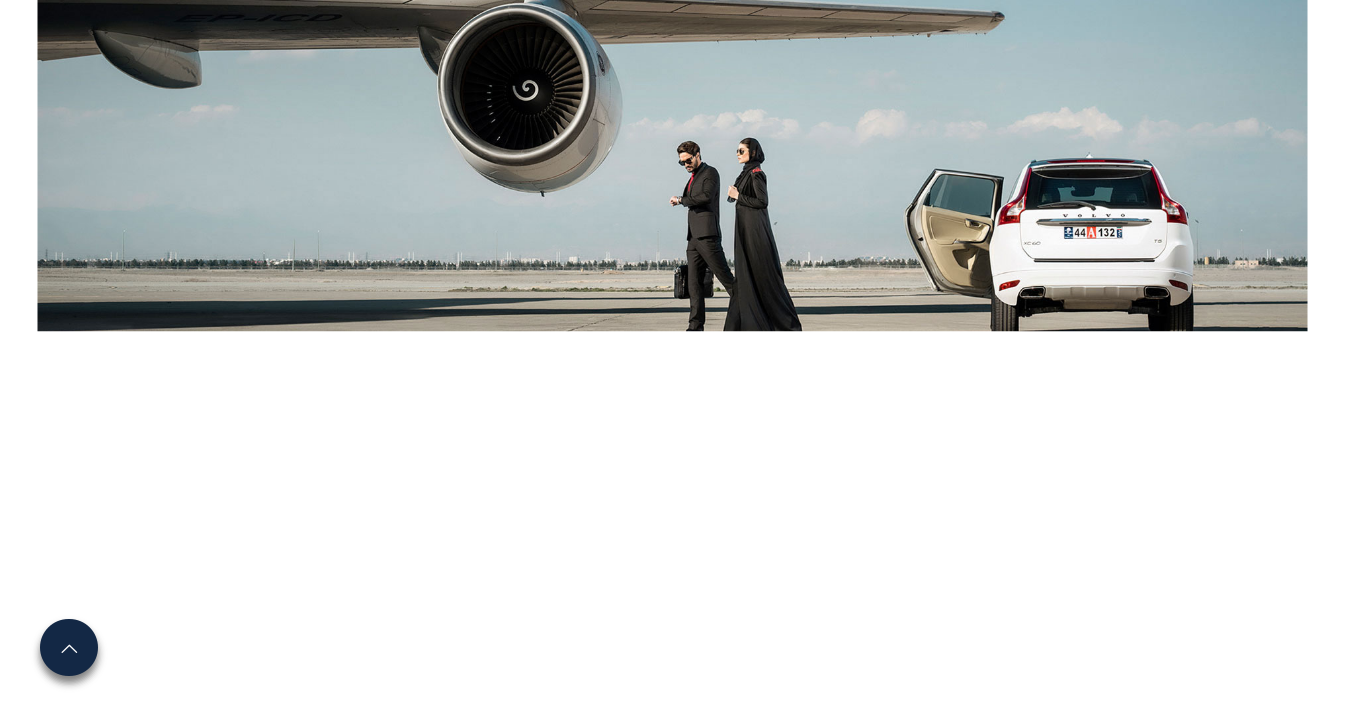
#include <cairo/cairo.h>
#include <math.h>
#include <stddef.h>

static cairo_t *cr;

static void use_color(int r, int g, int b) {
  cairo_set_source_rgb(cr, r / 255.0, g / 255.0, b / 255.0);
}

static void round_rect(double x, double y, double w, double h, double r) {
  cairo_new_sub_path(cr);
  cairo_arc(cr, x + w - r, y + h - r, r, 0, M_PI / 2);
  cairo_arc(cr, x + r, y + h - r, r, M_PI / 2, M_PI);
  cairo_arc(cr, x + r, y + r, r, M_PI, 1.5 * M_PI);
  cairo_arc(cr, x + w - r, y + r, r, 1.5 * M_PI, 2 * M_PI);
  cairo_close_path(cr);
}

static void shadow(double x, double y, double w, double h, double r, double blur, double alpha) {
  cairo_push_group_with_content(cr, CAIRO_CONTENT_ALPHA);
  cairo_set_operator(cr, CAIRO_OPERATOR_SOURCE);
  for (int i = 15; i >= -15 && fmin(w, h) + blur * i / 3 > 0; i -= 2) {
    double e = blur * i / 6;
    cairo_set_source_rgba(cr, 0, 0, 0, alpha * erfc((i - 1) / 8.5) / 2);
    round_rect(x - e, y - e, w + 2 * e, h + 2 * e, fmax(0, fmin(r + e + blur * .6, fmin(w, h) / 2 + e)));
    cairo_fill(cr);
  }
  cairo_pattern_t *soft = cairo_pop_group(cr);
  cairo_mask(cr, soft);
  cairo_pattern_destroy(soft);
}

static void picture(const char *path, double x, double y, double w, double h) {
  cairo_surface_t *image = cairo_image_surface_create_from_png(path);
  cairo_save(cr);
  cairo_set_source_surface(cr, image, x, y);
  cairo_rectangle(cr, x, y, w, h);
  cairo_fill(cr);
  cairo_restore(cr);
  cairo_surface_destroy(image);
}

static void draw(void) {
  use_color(255, 255, 255);
  cairo_paint(cr);
  picture("img_01.png", 37, 0, 1271, 332);
  use_color(0, 0, 0);
  shadow(40, 625, 58, 58, 29, 4, 0.5);
  use_color(19, 40, 69);
  round_rect(40, 619, 58, 57, 28.5);
  cairo_fill(cr);
  picture("img_02.png", 61, 644, 17, 9);
}

int main(void) {
  cairo_surface_t *surface = cairo_image_surface_create(CAIRO_FORMAT_RGB24, 1345, 719);
  cr = cairo_create(surface);
  cairo_font_options_t *options = cairo_font_options_create();
  cairo_font_options_set_hint_metrics(options, CAIRO_HINT_METRICS_OFF);
  cairo_font_options_set_hint_style(options, CAIRO_HINT_STYLE_NONE);
  cairo_set_font_options(cr, options);
  cairo_set_miter_limit(cr, 4);
  draw();
  cairo_surface_write_to_png(surface, "out.png");
  cairo_font_options_destroy(options);
  cairo_destroy(cr);
  cairo_surface_destroy(surface);
  return 0;
}
